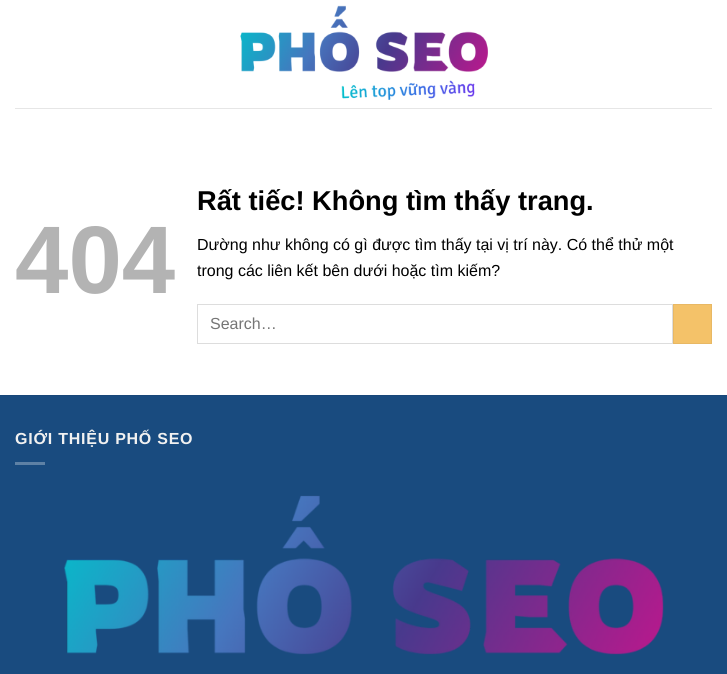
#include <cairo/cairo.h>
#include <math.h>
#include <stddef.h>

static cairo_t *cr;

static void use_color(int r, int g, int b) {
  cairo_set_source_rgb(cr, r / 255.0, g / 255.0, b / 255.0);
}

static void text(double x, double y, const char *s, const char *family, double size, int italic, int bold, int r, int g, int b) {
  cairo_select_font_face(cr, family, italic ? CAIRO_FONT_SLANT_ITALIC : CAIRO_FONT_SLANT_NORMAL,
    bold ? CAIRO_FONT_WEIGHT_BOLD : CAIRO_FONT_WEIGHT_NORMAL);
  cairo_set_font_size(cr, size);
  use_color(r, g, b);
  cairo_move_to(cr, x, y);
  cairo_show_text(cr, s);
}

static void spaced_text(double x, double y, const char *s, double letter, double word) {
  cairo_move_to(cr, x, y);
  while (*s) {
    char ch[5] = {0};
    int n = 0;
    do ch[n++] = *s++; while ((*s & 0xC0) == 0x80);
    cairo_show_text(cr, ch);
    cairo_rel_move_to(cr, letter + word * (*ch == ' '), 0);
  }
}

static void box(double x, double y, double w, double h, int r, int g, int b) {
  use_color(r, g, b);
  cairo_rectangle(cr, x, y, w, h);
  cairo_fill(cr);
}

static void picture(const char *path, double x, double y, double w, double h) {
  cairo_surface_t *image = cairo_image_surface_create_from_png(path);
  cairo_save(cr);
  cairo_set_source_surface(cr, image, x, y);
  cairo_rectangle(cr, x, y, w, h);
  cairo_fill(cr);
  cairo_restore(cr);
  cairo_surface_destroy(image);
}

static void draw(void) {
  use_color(255, 255, 255);
  cairo_paint(cr);
  picture("img_01.png", 240, 5, 248, 95);
  box(15, 108, 697, 1, 230, 230, 230);
  cairo_rectangle(cr, 197.5, 304.5, 475, 39);
  use_color(221, 221, 221);
  cairo_set_line_width(cr, 1);
  cairo_stroke(cr);
  use_color(244, 194, 105);
  cairo_rectangle(cr, 673.5, 304.5, 38, 39);
  cairo_fill_preserve(cr);
  use_color(232, 184, 100);
  cairo_stroke(cr);
  box(0, 396, 727, 278, 25, 75, 127);
  box(0, 395, 727, 1, 24, 71, 121);
  box(15, 462, 30, 3, 94, 129, 165);
  picture("img_02.png", 64, 495, 600, 160);
  text(15, 293, "404", "Liberation Sans", 96, 0, 1, 179, 179, 179);
  text(197, 210, "Rất tiếc! Không tìm thấy trang.", "Liberation Sans", 27.25, 0, 1, 0, 0, 0);
  text(197, 250, "Dường như không có gì được tìm thấy tại vị trí này. Có thể thử một", "Liberation Sans", 16, 0, 0, 0, 0, 0);
  text(197, 276, "trong các liên kết bên dưới hoặc tìm kiếm?", "Liberation Sans", 16, 0, 0, 0, 0, 0);
  text(210, 329, "Search…", "Liberation Sans", 16, 0, 0, 117, 117, 117);
  cairo_select_font_face(cr, "Liberation Sans", CAIRO_FONT_SLANT_NORMAL, CAIRO_FONT_WEIGHT_BOLD);
  use_color(241, 241, 241);
  spaced_text(15, 444, "GIỚI THIỆU PHỐ SEO", 0.75, 0);
}

int main(void) {
  cairo_surface_t *surface = cairo_image_surface_create(CAIRO_FORMAT_RGB24, 727, 674);
  cr = cairo_create(surface);
  cairo_font_options_t *options = cairo_font_options_create();
  cairo_font_options_set_hint_metrics(options, CAIRO_HINT_METRICS_OFF);
  cairo_font_options_set_hint_style(options, CAIRO_HINT_STYLE_NONE);
  cairo_set_font_options(cr, options);
  cairo_set_miter_limit(cr, 4);
  draw();
  cairo_surface_write_to_png(surface, "out.png");
  cairo_font_options_destroy(options);
  cairo_destroy(cr);
  cairo_surface_destroy(surface);
  return 0;
}
